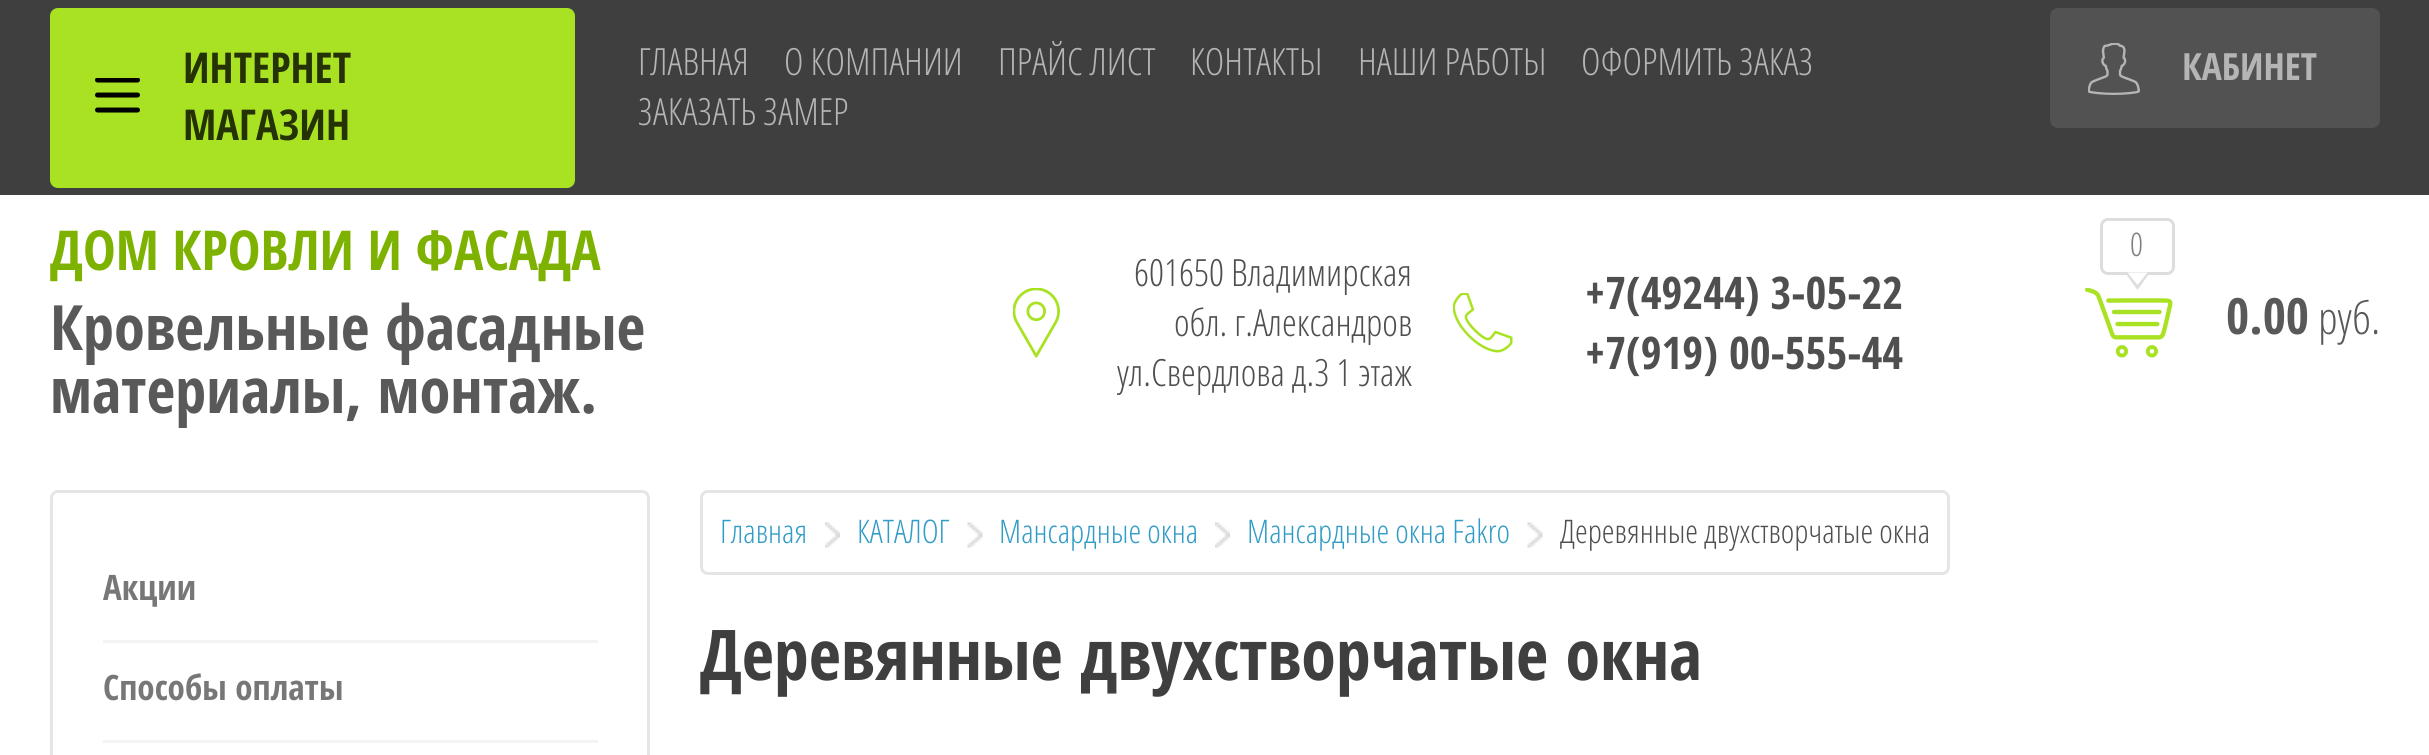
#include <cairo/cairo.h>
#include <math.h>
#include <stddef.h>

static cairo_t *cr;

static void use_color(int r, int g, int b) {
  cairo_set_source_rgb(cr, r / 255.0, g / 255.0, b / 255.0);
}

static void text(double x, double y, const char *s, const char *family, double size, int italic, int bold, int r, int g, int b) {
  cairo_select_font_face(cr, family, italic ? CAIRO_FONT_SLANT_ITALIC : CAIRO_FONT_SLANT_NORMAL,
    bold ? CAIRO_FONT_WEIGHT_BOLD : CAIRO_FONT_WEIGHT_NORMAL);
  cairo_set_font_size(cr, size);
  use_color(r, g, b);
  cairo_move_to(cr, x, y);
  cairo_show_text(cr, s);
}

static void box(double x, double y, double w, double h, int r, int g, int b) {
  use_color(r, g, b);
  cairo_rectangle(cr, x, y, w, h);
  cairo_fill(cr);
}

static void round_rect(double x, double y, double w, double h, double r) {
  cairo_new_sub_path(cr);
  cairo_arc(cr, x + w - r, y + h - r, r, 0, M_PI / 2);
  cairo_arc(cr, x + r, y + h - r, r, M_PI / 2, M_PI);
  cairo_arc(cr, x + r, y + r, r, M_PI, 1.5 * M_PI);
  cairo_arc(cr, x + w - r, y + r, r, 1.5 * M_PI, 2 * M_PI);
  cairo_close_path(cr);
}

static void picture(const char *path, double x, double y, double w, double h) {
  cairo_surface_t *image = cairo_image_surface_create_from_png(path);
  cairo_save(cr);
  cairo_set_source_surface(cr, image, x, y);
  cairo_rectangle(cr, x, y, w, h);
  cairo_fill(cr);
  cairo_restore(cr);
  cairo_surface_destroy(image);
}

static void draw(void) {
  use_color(255, 255, 255);
  cairo_paint(cr);
  box(0, 0, 2429, 195, 63, 63, 63);
  use_color(169, 226, 34);
  round_rect(50, 8, 525, 180, 8);
  cairo_fill(cr);
  picture("img_01.png", 95, 78, 45, 35);
  use_color(82, 82, 82);
  round_rect(2050, 8, 330, 120, 8);
  cairo_fill(cr);
  picture("img_02.png", 2088, 43, 52, 52);
  picture("img_03.png", 1013, 288, 47, 70);
  picture("img_04.png", 1453, 293, 60, 60);
  picture("img_05.png", 2085, 288, 88, 70);
  round_rect(2101.5, 219.5, 72, 54, 6.5);
  use_color(221, 221, 221);
  cairo_set_line_width(cr, 3);
  cairo_stroke(cr);
  cairo_new_path(cr);
  cairo_move_to(cr, 2125, 272.5);
  cairo_line_to(cr, 2150, 272.5);
  cairo_line_to(cr, 2137.5, 290);
  cairo_close_path(cr);
  cairo_fill(cr);
  use_color(255, 255, 255);
  cairo_new_path(cr);
  cairo_move_to(cr, 2127.5, 272.5);
  cairo_line_to(cr, 2147.5, 272.5);
  cairo_line_to(cr, 2137.5, 285);
  cairo_close_path(cr);
  cairo_fill(cr);
  round_rect(51.5, 491.5, 597, 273, 6.5);
  use_color(229, 229, 229);
  cairo_stroke(cr);
  box(103, 640, 495, 3, 243, 243, 243);
  box(103, 740, 495, 3, 243, 243, 243);
  round_rect(701.5, 491.5, 1247, 82, 6.5);
  use_color(229, 229, 229);
  cairo_stroke(cr);
  picture("img_06.png", 825, 522, 15, 26);
  picture("img_07.png", 967, 522, 16, 26);
  picture("img_08.png", 1215, 522, 15, 26);
  picture("img_09.png", 1527, 522, 16, 26);
  text(183, 83, "ИНТЕРНЕТ", "Open Sans Condensed", 42.5, 0, 1, 37, 50, 6);
  text(183, 140, "МАГАЗИН", "Open Sans Condensed", 42.5, 0, 1, 37, 50, 6);
  text(638, 75, "ГЛАВНАЯ", "Open Sans Light", 37.5, 0, 0, 181, 181, 181);
  text(784, 75, "О КОМПАНИИ", "Open Sans Light", 37.5, 0, 0, 181, 181, 181);
  text(998, 75, "ПРАЙС ЛИСТ", "Open Sans Light", 37.5, 0, 0, 181, 181, 181);
  text(1190, 75, "КОНТАКТЫ", "Open Sans Light", 37.5, 0, 0, 181, 181, 181);
  text(1358, 75, "НАШИ РАБОТЫ", "Open Sans Light", 37.5, 0, 0, 181, 181, 181);
  text(1581, 75, "ОФОРМИТЬ ЗАКАЗ", "Open Sans Light", 37.5, 0, 0, 181, 181, 181);
  text(638, 125, "ЗАКАЗАТЬ ЗАМЕР", "Open Sans Light", 37.5, 0, 0, 181, 181, 181);
  text(2182, 80, "КАБИНЕТ", "Open Sans Condensed", 37.5, 0, 1, 181, 181, 181);
  text(50, 270, "ДОМ КРОВЛИ И ФАСАДА", "Open Sans Condensed", 55, 0, 1, 125, 178, 0);
  text(50, 350, "Кровельные фасадные", "Open Sans Condensed", 62.5, 0, 1, 89, 89, 89);
  text(50, 413, "материалы, монтаж.", "Open Sans Condensed", 62.5, 0, 1, 89, 89, 89);
  text(1134, 286, "601650 Владимирская", "Open Sans Light", 37.5, 0, 0, 80, 79, 79);
  text(1174, 336, "обл. г.Александров", "Open Sans Light", 37.5, 0, 0, 80, 79, 79);
  text(1117, 386, "ул.Свердлова д.3 1 этаж", "Open Sans Light", 37.5, 0, 0, 80, 79, 79);
  text(1585, 309, "+7(49244) 3-05-22", "Open Sans Condensed", 45, 0, 1, 80, 79, 79);
  text(1585, 369, "+7(919) 00-555-44", "Open Sans Condensed", 45, 0, 1, 80, 79, 79);
  text(2130, 256, "0", "Open Sans Light", 32.5, 0, 0, 126, 126, 126);
  text(2226, 334, "0.00", "Open Sans Condensed", 50, 0, 1, 89, 89, 89);
  text(2318, 334, "руб.", "Open Sans Light", 45, 0, 0, 89, 89, 89);
  text(103, 600, "Акции", "Open Sans Condensed", 35, 0, 1, 119, 119, 119);
  text(103, 700, "Способы оплаты", "Open Sans Condensed", 35, 0, 1, 119, 119, 119);
  text(720, 543, "Главная", "Open Sans Light", 32.5, 0, 0, 49, 156, 198);
  text(857, 543, "КАТАЛОГ", "Open Sans Light", 32.5, 0, 0, 49, 156, 198);
  text(999, 543, "Мансардные окна", "Open Sans Light", 32.5, 0, 0, 49, 156, 198);
  text(1247, 543, "Мансардные окна Fakro", "Open Sans Light", 32.5, 0, 0, 49, 156, 198);
  text(1560, 543, "Деревянные двухстворчатые окна", "Open Sans Light", 32.5, 0, 0, 80, 79, 79);
  text(700, 680, "Деревянные двухстворчатые окна", "Open Sans Condensed", 70, 0, 1, 63, 63, 63);
}

int main(void) {
  cairo_surface_t *surface = cairo_image_surface_create(CAIRO_FORMAT_RGB24, 2429, 755);
  cr = cairo_create(surface);
  cairo_font_options_t *options = cairo_font_options_create();
  cairo_font_options_set_hint_metrics(options, CAIRO_HINT_METRICS_OFF);
  cairo_font_options_set_hint_style(options, CAIRO_HINT_STYLE_NONE);
  cairo_set_font_options(cr, options);
  cairo_set_miter_limit(cr, 4);
  draw();
  cairo_surface_write_to_png(surface, "out.png");
  cairo_font_options_destroy(options);
  cairo_destroy(cr);
  cairo_surface_destroy(surface);
  return 0;
}
